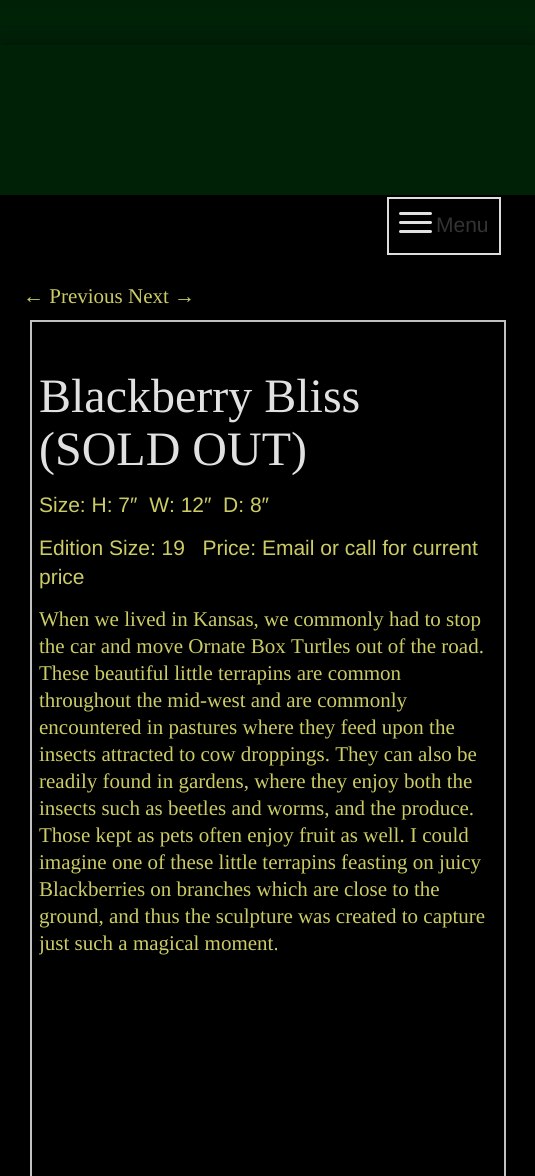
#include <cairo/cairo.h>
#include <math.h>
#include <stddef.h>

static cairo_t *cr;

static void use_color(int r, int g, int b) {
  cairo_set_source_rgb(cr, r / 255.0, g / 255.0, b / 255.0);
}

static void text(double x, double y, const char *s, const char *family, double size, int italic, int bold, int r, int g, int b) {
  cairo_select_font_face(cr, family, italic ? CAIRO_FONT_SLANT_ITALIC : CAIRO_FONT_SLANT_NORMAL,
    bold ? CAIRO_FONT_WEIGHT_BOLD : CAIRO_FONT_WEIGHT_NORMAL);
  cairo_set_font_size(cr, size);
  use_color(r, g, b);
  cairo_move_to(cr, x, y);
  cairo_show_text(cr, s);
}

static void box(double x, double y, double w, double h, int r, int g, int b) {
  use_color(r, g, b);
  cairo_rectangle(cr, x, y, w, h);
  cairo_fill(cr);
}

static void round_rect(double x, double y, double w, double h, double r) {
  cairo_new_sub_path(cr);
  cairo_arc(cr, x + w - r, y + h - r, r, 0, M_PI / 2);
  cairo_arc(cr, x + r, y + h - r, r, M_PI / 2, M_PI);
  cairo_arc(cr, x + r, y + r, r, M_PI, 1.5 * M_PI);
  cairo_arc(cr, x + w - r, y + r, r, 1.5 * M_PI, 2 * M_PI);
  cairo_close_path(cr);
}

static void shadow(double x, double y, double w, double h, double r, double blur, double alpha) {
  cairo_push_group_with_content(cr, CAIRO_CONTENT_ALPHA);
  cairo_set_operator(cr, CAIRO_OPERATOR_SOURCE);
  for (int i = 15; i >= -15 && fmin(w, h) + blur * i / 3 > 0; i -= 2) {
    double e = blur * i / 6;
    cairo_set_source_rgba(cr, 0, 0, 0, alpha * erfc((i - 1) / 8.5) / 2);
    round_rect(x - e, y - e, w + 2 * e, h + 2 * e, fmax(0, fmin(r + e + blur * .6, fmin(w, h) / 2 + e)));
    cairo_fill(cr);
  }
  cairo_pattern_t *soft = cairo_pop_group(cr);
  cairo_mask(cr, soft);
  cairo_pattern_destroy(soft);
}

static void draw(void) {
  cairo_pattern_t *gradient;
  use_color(255, 255, 255);
  cairo_paint(cr);
  gradient = cairo_pattern_create_linear(268, 0, 268, 1176);
  cairo_pattern_add_color_stop_rgba(gradient, 0, 0, 0.129, 0.024, 1);
  cairo_pattern_add_color_stop_rgba(gradient, 0.5, 0.008, 0.341, 0.067, 1);
  cairo_pattern_add_color_stop_rgba(gradient, 1, 0, 0.129, 0.024, 1);
  cairo_set_source(cr, gradient);
  cairo_pattern_destroy(gradient);
  cairo_rectangle(cr, 0, 0, 535, 45);
  cairo_fill(cr);
  use_color(0, 0, 0);
  shadow(0, 45, 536, 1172, 0, 13.5, 0.59);
  box(0, 195, 535, 981, 0, 0, 0);
  box(0, 45, 535, 150, 0, 33, 6);
  cairo_rectangle(cr, 388, 198, 112, 56);
  use_color(221, 221, 221);
  cairo_stroke(cr);
  use_color(225, 225, 225);
  round_rect(399, 212, 33, 3, 1.5);
  cairo_fill(cr);
  round_rect(399, 221, 33, 3, 1.5);
  cairo_fill(cr);
  round_rect(399, 230, 33, 3, 1.5);
  cairo_fill(cr);
  cairo_rectangle(cr, 31, 321, 474, 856);
  use_color(193, 193, 193);
  cairo_stroke(cr);
  text(436, 232, "Menu", "Liberation Sans", 21, 0, 0, 51, 51, 51);
  text(23, 303, "← Previous Next →", "Liberation Serif", 21, 0, 0, 204, 204, 102);
  text(39, 412, "Blackberry Bliss", "Liberation Serif", 48, 0, 0, 225, 225, 225);
  text(39, 465, "(SOLD OUT)", "Liberation Serif", 48, 0, 0, 225, 225, 225);
  text(39, 512, "Size: H: 7″  W: 12″  D: 8″", "Liberation Sans", 21, 0, 0, 204, 204, 102);
  text(39, 555, "Edition Size: 19   Price: Email or call for current", "Liberation Sans", 21, 0, 0, 204, 204, 102);
  text(39, 584, "price", "Liberation Sans", 21, 0, 0, 204, 204, 102);
  text(39, 626, "When we lived in Kansas, we commonly had to stop", "Liberation Serif", 21, 0, 0, 204, 204, 102);
  text(39, 653, "the car and move Ornate Box Turtles out of the road.", "Liberation Serif", 21, 0, 0, 204, 204, 102);
  text(39, 680, "These beautiful little terrapins are common", "Liberation Serif", 21, 0, 0, 204, 204, 102);
  text(39, 707, "throughout the mid-west and are commonly", "Liberation Serif", 21, 0, 0, 204, 204, 102);
  text(39, 734, "encountered in pastures where they feed upon the", "Liberation Serif", 21, 0, 0, 204, 204, 102);
  text(39, 761, "insects attracted to cow droppings. They can also be", "Liberation Serif", 21, 0, 0, 204, 204, 102);
  text(39, 788, "readily found in gardens, where they enjoy both the", "Liberation Serif", 21, 0, 0, 204, 204, 102);
  text(39, 815, "insects such as beetles and worms, and the produce.", "Liberation Serif", 21, 0, 0, 204, 204, 102);
  text(39, 842, "Those kept as pets often enjoy fruit as well. I could", "Liberation Serif", 21, 0, 0, 204, 204, 102);
  text(39, 869, "imagine one of these little terrapins feasting on juicy", "Liberation Serif", 21, 0, 0, 204, 204, 102);
  text(39, 896, "Blackberries on branches which are close to the", "Liberation Serif", 21, 0, 0, 204, 204, 102);
  text(39, 923, "ground, and thus the sculpture was created to capture", "Liberation Serif", 21, 0, 0, 204, 204, 102);
  cairo_save(cr);
  cairo_rectangle(cr, 39, 359, 458, 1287);
  cairo_clip(cr);
  text(39, 950, "just such a magical moment.", "Liberation Serif", 21, 0, 0, 204, 204, 102);
  cairo_restore(cr);
}

int main(void) {
  cairo_surface_t *surface = cairo_image_surface_create(CAIRO_FORMAT_RGB24, 535, 1176);
  cr = cairo_create(surface);
  cairo_font_options_t *options = cairo_font_options_create();
  cairo_font_options_set_hint_metrics(options, CAIRO_HINT_METRICS_OFF);
  cairo_font_options_set_hint_style(options, CAIRO_HINT_STYLE_NONE);
  cairo_set_font_options(cr, options);
  cairo_set_miter_limit(cr, 4);
  draw();
  cairo_surface_write_to_png(surface, "out.png");
  cairo_font_options_destroy(options);
  cairo_destroy(cr);
  cairo_surface_destroy(surface);
  return 0;
}
